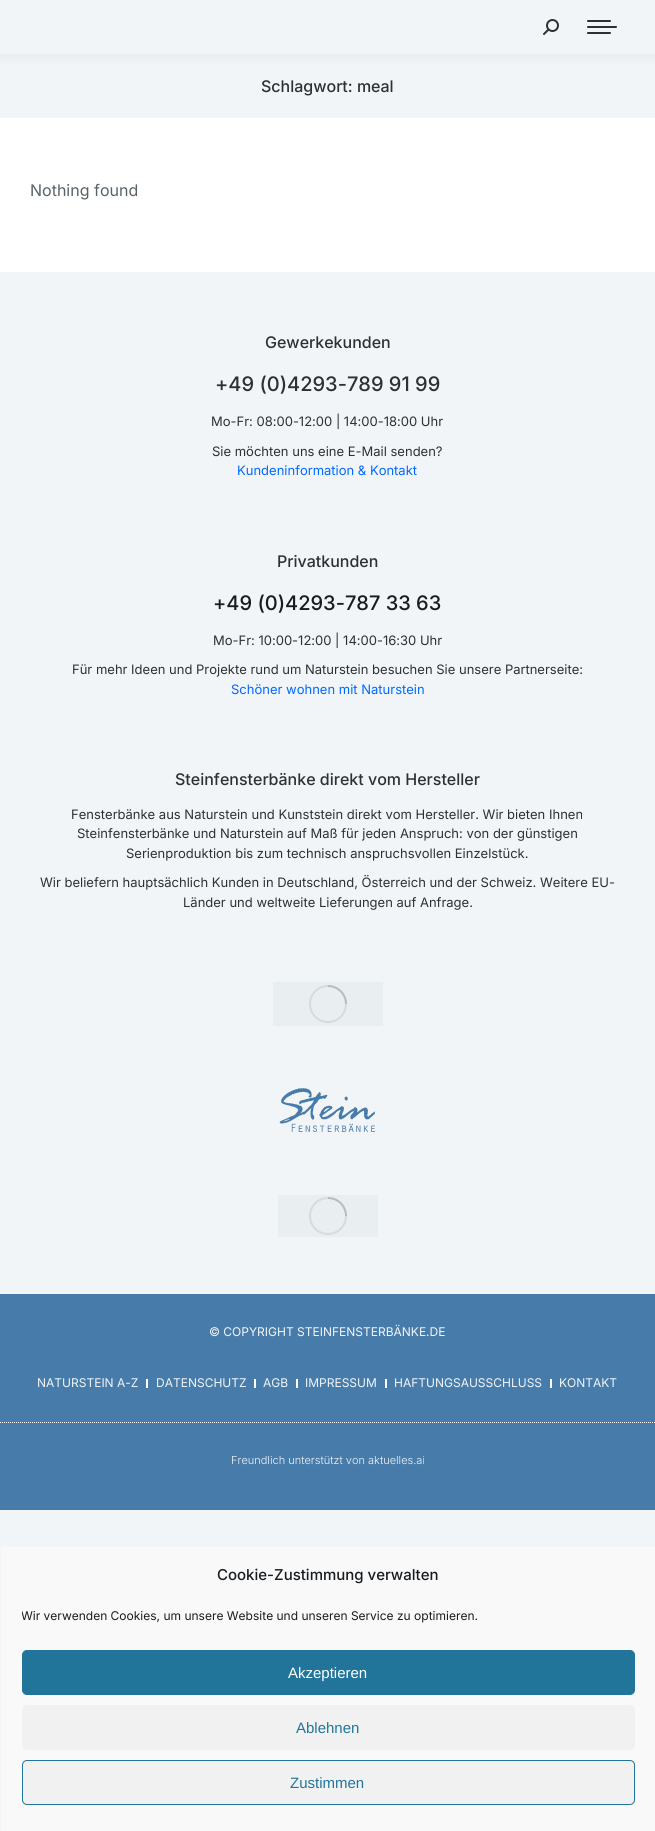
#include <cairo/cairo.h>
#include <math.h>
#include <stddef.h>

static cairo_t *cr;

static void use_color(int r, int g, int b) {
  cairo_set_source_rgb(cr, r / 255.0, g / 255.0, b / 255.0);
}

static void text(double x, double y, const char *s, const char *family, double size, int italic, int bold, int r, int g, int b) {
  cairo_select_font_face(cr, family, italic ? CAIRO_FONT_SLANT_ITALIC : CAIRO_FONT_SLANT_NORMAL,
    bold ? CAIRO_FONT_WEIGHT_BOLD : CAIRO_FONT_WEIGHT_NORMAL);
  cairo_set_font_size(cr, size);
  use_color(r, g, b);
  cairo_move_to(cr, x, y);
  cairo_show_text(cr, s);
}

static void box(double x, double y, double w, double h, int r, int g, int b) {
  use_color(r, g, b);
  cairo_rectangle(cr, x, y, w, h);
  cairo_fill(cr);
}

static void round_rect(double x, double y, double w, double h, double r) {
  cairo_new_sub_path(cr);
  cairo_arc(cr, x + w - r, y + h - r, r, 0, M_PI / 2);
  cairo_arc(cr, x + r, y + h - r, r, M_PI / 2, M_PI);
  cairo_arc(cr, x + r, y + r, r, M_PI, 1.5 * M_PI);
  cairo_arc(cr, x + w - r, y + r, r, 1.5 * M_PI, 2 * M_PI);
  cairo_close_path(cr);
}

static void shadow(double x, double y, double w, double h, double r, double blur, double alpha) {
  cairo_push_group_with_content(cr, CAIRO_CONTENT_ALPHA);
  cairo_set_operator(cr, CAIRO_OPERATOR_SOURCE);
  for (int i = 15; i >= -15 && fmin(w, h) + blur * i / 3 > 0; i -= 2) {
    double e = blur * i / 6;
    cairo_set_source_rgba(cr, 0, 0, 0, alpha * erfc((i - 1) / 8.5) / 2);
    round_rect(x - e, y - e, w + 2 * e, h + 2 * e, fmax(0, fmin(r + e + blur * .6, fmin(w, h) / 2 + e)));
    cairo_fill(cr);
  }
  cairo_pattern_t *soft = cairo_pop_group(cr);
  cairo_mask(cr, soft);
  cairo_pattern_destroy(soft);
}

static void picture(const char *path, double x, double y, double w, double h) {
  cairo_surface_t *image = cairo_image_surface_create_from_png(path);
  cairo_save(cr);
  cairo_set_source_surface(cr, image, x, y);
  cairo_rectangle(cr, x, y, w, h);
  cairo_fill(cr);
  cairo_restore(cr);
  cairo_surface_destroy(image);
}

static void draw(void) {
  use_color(241, 245, 248);
  cairo_paint(cr);
  box(0, 118, 655, 154, 255, 255, 255);
  use_color(0, 0, 0);
  shadow(-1, -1, 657, 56, 0, 7.5, 0.07);
  box(0, 0, 655, 54, 241, 245, 248);
  picture("img_01.png", 543, 19, 16, 16);
  use_color(43, 49, 53);
  round_rect(587, 20, 24, 2, 1);
  cairo_fill(cr);
  round_rect(587, 26, 30, 2, 1);
  cairo_fill(cr);
  round_rect(587, 32, 24, 2, 1);
  cairo_fill(cr);
  box(273, 982, 110, 44, 233, 238, 241);
  cairo_arc(cr, 328, 1004, 18, 0, 2 * M_PI);
  use_color(213, 219, 222);
  cairo_stroke(cr);
  cairo_new_path(cr);
  cairo_move_to(cr, 346, 1004);
  cairo_curve_to(cr, 346, 994, 338, 986, 328, 986);
  cairo_set_source_rgba(cr, 0.345, 0.388, 0.408, 0.25);
  cairo_stroke(cr);
  picture("img_02.png", 279, 1087, 97, 45);
  box(278, 1195, 100, 42, 233, 238, 241);
  cairo_arc(cr, 328, 1216, 18, 0, 2 * M_PI);
  use_color(213, 219, 222);
  cairo_stroke(cr);
  cairo_new_path(cr);
  cairo_move_to(cr, 346, 1216);
  cairo_curve_to(cr, 346, 1206, 338, 1198, 328, 1198);
  cairo_set_source_rgba(cr, 0.345, 0.388, 0.408, 0.25);
  cairo_stroke(cr);
  box(0, 1294, 655, 216, 71, 124, 170);
  box(146, 1379, 2, 9, 255, 255, 255);
  box(254, 1379, 2, 9, 255, 255, 255);
  box(296, 1379, 2, 9, 255, 255, 255);
  box(385, 1379, 2, 9, 255, 255, 255);
  box(550, 1379, 2, 9, 255, 255, 255);
  cairo_new_path(cr);
  cairo_move_to(cr, 0, 1422.5);
  cairo_line_to(cr, 655, 1422.5);
  cairo_set_line_width(cr, 1);
  cairo_set_dash(cr, (double[]){1, 1}, 2, 0);
  cairo_stroke(cr);
  box(1, 1547, 654, 284, 249, 249, 249);
  use_color(33, 117, 155);
  round_rect(22.5, 1650.5, 612, 44, 4.5);
  cairo_fill_preserve(cr);
  cairo_set_dash(cr, NULL, 0, 0);
  cairo_stroke(cr);
  use_color(241, 241, 241);
  round_rect(22, 1705, 613, 45, 5);
  cairo_fill(cr);
  round_rect(22.5, 1760.5, 612, 44, 4.5);
  cairo_fill_preserve(cr);
  use_color(33, 117, 155);
  cairo_stroke(cr);
  text(261, 92, "Schlagwort: meal", "Inter Medium", 16, 0, 0, 43, 49, 53);
  text(30, 196, "Nothing found", "Inter", 16, 0, 0, 88, 99, 104);
  text(265, 348, "Gewerkekunden", "Inter Medium", 16, 0, 0, 43, 49, 53);
  text(215, 391, "+49 (0)4293-789 91 99", "Inter Medium", 20, 0, 0, 43, 49, 53);
  text(211, 426, "Mo-Fr: 08:00-12:00 | 14:00-18:00 Uhr", "Inter", 13, 0, 0, 43, 49, 53);
  text(212, 456, "Sie möchten uns eine E-Mail senden?", "Inter", 13, 0, 0, 43, 49, 53);
  text(237, 475, "Kundeninformation & Kontakt", "Inter", 13, 0, 0, 0, 105, 255);
  text(277, 567, "Privatkunden", "Inter Medium", 16, 0, 0, 43, 49, 53);
  text(213, 610, "+49 (0)4293-787 33 63", "Inter Medium", 20, 0, 0, 24, 28, 32);
  text(213, 645, "Mo-Fr: 10:00-12:00 | 14:00-16:30 Uhr", "Inter", 13, 0, 0, 43, 49, 53);
  text(72, 674, "Für mehr Ideen und Projekte rund um Naturstein besuchen Sie unsere Partnerseite:", "Inter", 13, 0, 0, 43, 49, 53);
  text(231, 694, "Schöner wohnen mit Naturstein", "Inter", 13, 0, 0, 0, 105, 255);
  text(175, 785, "Steinfensterbänke direkt vom Hersteller", "Inter Medium", 16, 0, 0, 43, 49, 53);
  text(71, 819, "Fensterbänke aus Naturstein und Kunststein direkt vom Hersteller. Wir bieten Ihnen", "Inter", 13, 0, 0, 43, 49, 53);
  text(77, 838, "Steinfensterbänke und Naturstein auf Maß für jeden Anspruch: von der günstigen", "Inter", 13, 0, 0, 43, 49, 53);
  text(126, 858, "Serienproduktion bis zum technisch anspruchsvollen Einzelstück.", "Inter", 13, 0, 0, 43, 49, 53);
  text(40, 887, "Wir beliefern hauptsächlich Kunden in Deutschland, Österreich und der Schweiz. Weitere EU-", "Inter", 13, 0, 0, 43, 49, 53);
  text(183, 907, "Länder und weltweite Lieferungen auf Anfrage.", "Inter", 13, 0, 0, 43, 49, 53);
  text(209, 1336, "© COPYRIGHT STEINFENSTERBÄNKE.DE", "Inter", 12, 0, 0, 241, 245, 248);
  text(37, 1387, "NATURSTEIN A-Z", "Inter", 12, 0, 0, 241, 245, 248);
  text(156, 1387, "DATENSCHUTZ", "Inter", 12, 0, 0, 241, 245, 248);
  text(263, 1387, "AGB", "Inter", 12, 0, 0, 241, 245, 248);
  text(305, 1387, "IMPRESSUM", "Inter", 12, 0, 0, 241, 245, 248);
  text(394, 1387, "HAFTUNGSAUSSCHLUSS", "Inter", 12, 0, 0, 241, 245, 248);
  text(559, 1387, "KONTAKT", "Inter", 12, 0, 0, 241, 245, 248);
  text(231, 1464, "Freundlich unterstützt von aktuelles.ai", "Inter Light", 11, 0, 0, 241, 245, 248);
  text(217, 1580, "Cookie-Zustimmung verwalten", "Inter Medium", 15, 0, 0, 24, 28, 32);
  cairo_save(cr);
  cairo_rectangle(cr, 22, 1607, 613, 23);
  cairo_clip(cr);
  text(21, 1620, "Wir verwenden Cookies, um unsere Website und unseren Service zu optimieren.", "Inter", 12, 0, 0, 24, 28, 32);
  cairo_restore(cr);
  text(288, 1678, "Akzeptieren", "Liberation Sans", 15, 0, 0, 255, 255, 255);
  text(296, 1733, "Ablehnen", "Liberation Sans", 15, 0, 0, 33, 117, 155);
  text(290, 1788, "Zustimmen", "Liberation Sans", 15, 0, 0, 33, 117, 155);
}

int main(void) {
  cairo_surface_t *surface = cairo_image_surface_create(CAIRO_FORMAT_RGB24, 655, 1831);
  cr = cairo_create(surface);
  cairo_font_options_t *options = cairo_font_options_create();
  cairo_font_options_set_hint_metrics(options, CAIRO_HINT_METRICS_OFF);
  cairo_font_options_set_hint_style(options, CAIRO_HINT_STYLE_NONE);
  cairo_set_font_options(cr, options);
  cairo_set_miter_limit(cr, 4);
  draw();
  cairo_surface_write_to_png(surface, "out.png");
  cairo_font_options_destroy(options);
  cairo_destroy(cr);
  cairo_surface_destroy(surface);
  return 0;
}
